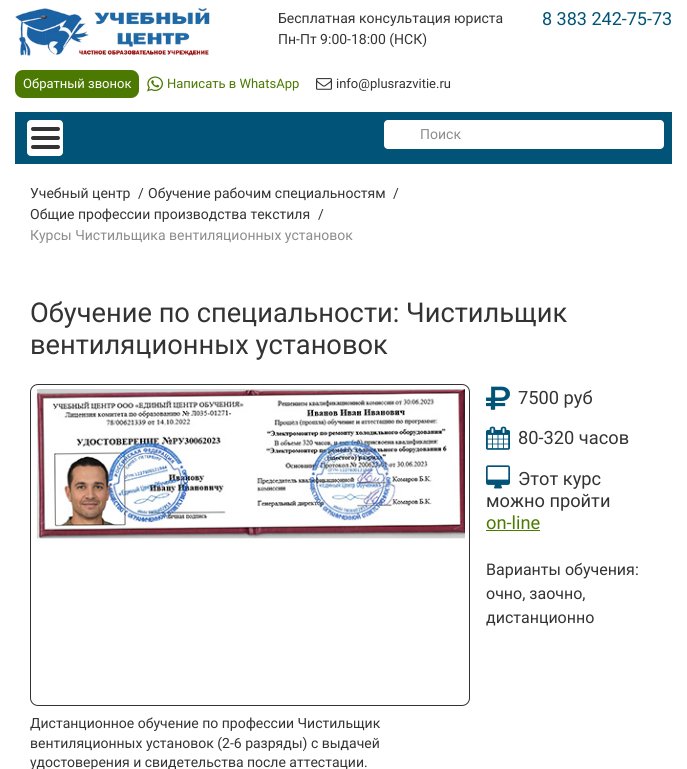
#include <cairo/cairo.h>
#include <math.h>
#include <stddef.h>

static cairo_t *cr;

static void use_color(int r, int g, int b) {
  cairo_set_source_rgb(cr, r / 255.0, g / 255.0, b / 255.0);
}

static void text(double x, double y, const char *s, const char *family, double size, int italic, int bold, int r, int g, int b) {
  cairo_select_font_face(cr, family, italic ? CAIRO_FONT_SLANT_ITALIC : CAIRO_FONT_SLANT_NORMAL,
    bold ? CAIRO_FONT_WEIGHT_BOLD : CAIRO_FONT_WEIGHT_NORMAL);
  cairo_set_font_size(cr, size);
  use_color(r, g, b);
  cairo_move_to(cr, x, y);
  cairo_show_text(cr, s);
}

static void box(double x, double y, double w, double h, int r, int g, int b) {
  use_color(r, g, b);
  cairo_rectangle(cr, x, y, w, h);
  cairo_fill(cr);
}

static void round_rect(double x, double y, double w, double h, double r) {
  cairo_new_sub_path(cr);
  cairo_arc(cr, x + w - r, y + h - r, r, 0, M_PI / 2);
  cairo_arc(cr, x + r, y + h - r, r, M_PI / 2, M_PI);
  cairo_arc(cr, x + r, y + r, r, M_PI, 1.5 * M_PI);
  cairo_arc(cr, x + w - r, y + r, r, 1.5 * M_PI, 2 * M_PI);
  cairo_close_path(cr);
}

static void picture(const char *path, double x, double y, double w, double h) {
  cairo_surface_t *image = cairo_image_surface_create_from_png(path);
  cairo_save(cr);
  cairo_set_source_surface(cr, image, x, y);
  cairo_rectangle(cr, x, y, w, h);
  cairo_fill(cr);
  cairo_restore(cr);
  cairo_surface_destroy(image);
}

static void draw(void) {
  use_color(255, 255, 255);
  cairo_paint(cr);
  picture("img_01.png", 15, 8, 195, 48);
  use_color(75, 121, 2);
  round_rect(15, 70, 124, 28, 8);
  cairo_fill(cr);
  picture("img_02.png", 147, 76, 16, 16);
  picture("img_03.png", 316, 78, 16, 12);
  box(15, 112, 657, 52, 1, 84, 120);
  use_color(255, 255, 255);
  round_rect(27, 120, 36, 36, 4);
  cairo_fill(cr);
  use_color(51, 51, 51);
  round_rect(31, 127, 29, 4, 2);
  cairo_fill(cr);
  round_rect(31, 136, 29, 4, 2);
  cairo_fill(cr);
  round_rect(31, 145, 29, 4, 2);
  cairo_fill(cr);
  use_color(255, 255, 255);
  round_rect(384, 120, 280, 29, 4);
  cairo_fill(cr);
  picture("img_04.png", 486, 386, 24, 24);
  picture("img_05.png", 486, 426, 24, 24);
  picture("img_06.png", 486, 465, 24, 24);
  box(486, 530, 54, 1, 75, 121, 2);
  round_rect(30.5, 384.5, 439, 321, 7.5);
  use_color(51, 51, 51);
  cairo_set_line_width(cr, 1);
  cairo_stroke(cr);
  picture("img_07.png", 35, 389, 430, 153);
  text(278, 23, "Бесплатная консультация юриста", "Roboto", 14, 0, 0, 51, 51, 51);
  text(278, 44, "Пн-Пт 9:00-18:00 (НСК)", "Roboto", 14, 0, 0, 51, 51, 51);
  text(542, 25, "8 383 242-75-73", "Roboto", 18, 0, 0, 1, 84, 120);
  text(23, 88, "Обратный звонок", "Roboto", 13, 0, 0, 255, 255, 255);
  text(167, 88, "Написать в WhatsApp", "Roboto", 13, 0, 0, 75, 121, 2);
  text(336, 88, "info@plusrazvitie.ru", "Roboto", 13, 0, 0, 51, 51, 51);
  text(420, 139, "Поиск", "Roboto", 14, 0, 0, 140, 140, 140);
  text(30, 198, "Учебный центр", "Roboto", 14, 0, 0, 51, 51, 51);
  text(138, 198, "/", "Roboto", 14, 0, 0, 51, 51, 51);
  text(148, 198, "Обучение рабочим специальностям", "Roboto", 14, 0, 0, 51, 51, 51);
  text(393, 198, "/", "Roboto", 14, 0, 0, 51, 51, 51);
  text(30, 219, "Общие профессии производства текстиля", "Roboto", 14, 0, 0, 51, 51, 51);
  text(318, 219, "/", "Roboto", 14, 0, 0, 51, 51, 51);
  text(30, 240, "Курсы Чистильщика вентиляционных установок", "Roboto", 14, 0, 0, 140, 140, 140);
  text(30, 322, "Обучение по специальности: Чистильщик", "Roboto", 27.25, 0, 0, 51, 51, 51);
  text(30, 354, "вентиляционных установок", "Roboto", 27.25, 0, 0, 51, 51, 51);
  text(518, 404, "7500 руб", "Roboto", 18.25, 0, 0, 51, 51, 51);
  text(518, 444, "80-320 часов", "Roboto", 18.25, 0, 0, 51, 51, 51);
  text(518, 485, "Этот курс", "Roboto", 18.25, 0, 0, 51, 51, 51);
  text(486, 507, "можно пройти", "Roboto", 18.25, 0, 0, 51, 51, 51);
  text(486, 529, "on-line", "Roboto", 18.25, 0, 0, 75, 121, 2);
  text(486, 575, "Варианты обучения:", "Roboto", 16, 0, 0, 51, 51, 51);
  text(486, 599, "очно, заочно,", "Roboto", 16, 0, 0, 51, 51, 51);
  text(486, 623, "дистанционно", "Roboto", 16, 0, 0, 51, 51, 51);
  text(30, 728, "Дистанционное обучение по профессии Чистильщик", "Roboto", 14, 0, 0, 51, 51, 51);
  text(30, 748, "вентиляционных установок (2-6 разряды) с выдачей", "Roboto", 14, 0, 0, 51, 51, 51);
  text(30, 767, "удостоверения и свидетельства после аттестации.", "Roboto", 14, 0, 0, 51, 51, 51);
}

int main(void) {
  cairo_surface_t *surface = cairo_image_surface_create(CAIRO_FORMAT_RGB24, 687, 769);
  cr = cairo_create(surface);
  cairo_font_options_t *options = cairo_font_options_create();
  cairo_font_options_set_hint_metrics(options, CAIRO_HINT_METRICS_OFF);
  cairo_font_options_set_hint_style(options, CAIRO_HINT_STYLE_NONE);
  cairo_set_font_options(cr, options);
  cairo_set_miter_limit(cr, 4);
  draw();
  cairo_surface_write_to_png(surface, "out.png");
  cairo_font_options_destroy(options);
  cairo_destroy(cr);
  cairo_surface_destroy(surface);
  return 0;
}
